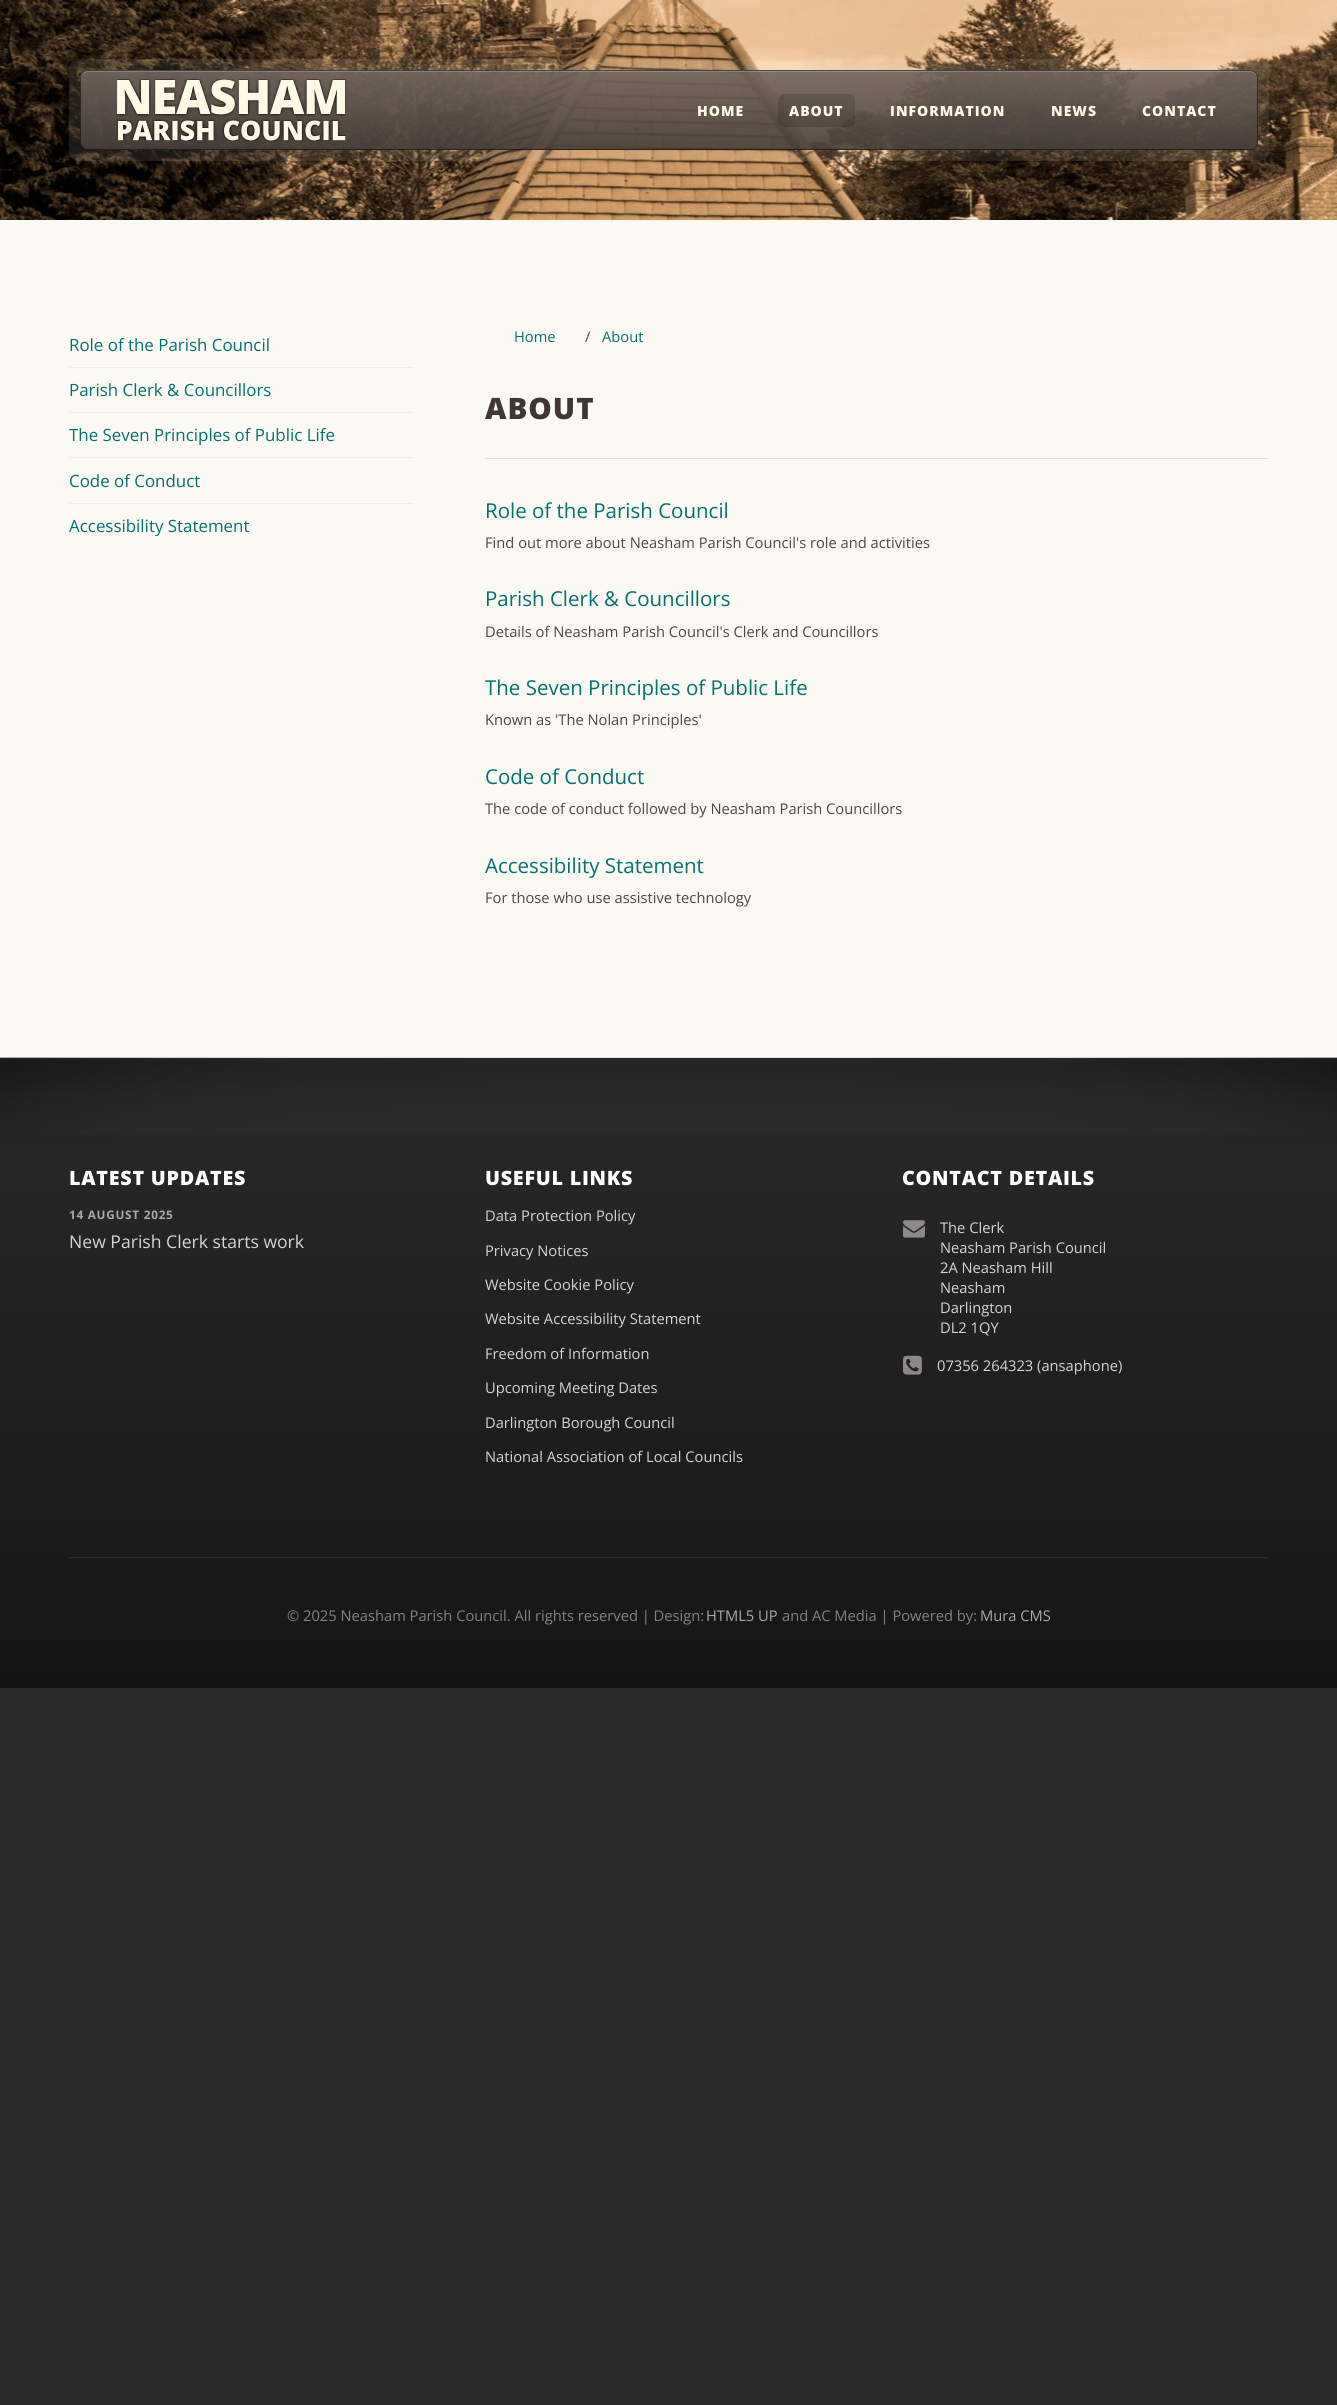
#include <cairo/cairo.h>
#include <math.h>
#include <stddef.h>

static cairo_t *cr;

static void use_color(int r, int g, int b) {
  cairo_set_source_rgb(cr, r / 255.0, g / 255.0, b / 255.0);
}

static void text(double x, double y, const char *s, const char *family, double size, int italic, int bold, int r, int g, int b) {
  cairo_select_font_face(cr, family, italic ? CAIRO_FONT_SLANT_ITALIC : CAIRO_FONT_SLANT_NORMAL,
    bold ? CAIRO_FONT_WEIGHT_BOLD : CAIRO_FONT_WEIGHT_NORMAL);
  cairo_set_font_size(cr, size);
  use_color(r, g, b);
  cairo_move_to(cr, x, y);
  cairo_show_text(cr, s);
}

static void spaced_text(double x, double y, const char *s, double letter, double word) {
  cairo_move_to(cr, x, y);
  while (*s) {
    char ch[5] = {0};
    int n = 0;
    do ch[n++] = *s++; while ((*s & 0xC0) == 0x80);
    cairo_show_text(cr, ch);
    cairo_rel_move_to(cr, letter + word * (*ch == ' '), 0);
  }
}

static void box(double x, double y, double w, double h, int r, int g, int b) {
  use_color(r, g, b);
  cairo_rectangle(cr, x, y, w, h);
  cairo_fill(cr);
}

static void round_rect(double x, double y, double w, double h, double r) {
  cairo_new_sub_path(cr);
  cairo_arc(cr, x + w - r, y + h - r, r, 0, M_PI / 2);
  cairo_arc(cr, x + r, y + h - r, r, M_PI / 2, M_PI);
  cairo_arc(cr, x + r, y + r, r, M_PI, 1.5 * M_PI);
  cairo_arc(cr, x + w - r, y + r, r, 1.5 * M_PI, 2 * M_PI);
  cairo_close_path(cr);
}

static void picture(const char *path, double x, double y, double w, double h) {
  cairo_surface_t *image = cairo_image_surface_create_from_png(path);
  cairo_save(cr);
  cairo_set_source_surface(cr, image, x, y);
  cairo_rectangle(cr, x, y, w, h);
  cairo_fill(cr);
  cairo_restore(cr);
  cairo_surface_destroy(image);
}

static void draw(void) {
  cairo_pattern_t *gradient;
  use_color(42, 42, 42);
  cairo_paint(cr);
  picture("img_01.png", 0, 0, 1337, 220);
  cairo_set_source_rgba(cr, 0.996, 0.976, 0.898, 0.1);
  round_rect(69, 59, 1200, 102, 10);
  cairo_fill(cr);
  gradient = cairo_pattern_create_linear(669, 70, 669, 150);
  cairo_pattern_add_color_stop_rgba(gradient, 0, 0.447, 0.4, 0.365, 0.9);
  cairo_pattern_add_color_stop_rgba(gradient, 1, 0.275, 0.243, 0.224, 0.9);
  cairo_set_source(cr, gradient);
  cairo_pattern_destroy(gradient);
  round_rect(80, 70, 1178, 80, 8);
  cairo_fill(cr);
  cairo_set_source_rgba(cr, 1, 1, 1, 0.2);
  cairo_new_path(cr);
  cairo_move_to(cr, 88, 72);
  cairo_line_to(cr, 1250, 72);
  cairo_curve_to(cr, 1254, 72, 1258, 76, 1258, 80);
  cairo_line_to(cr, 1258, 78);
  cairo_curve_to(cr, 1258, 74, 1254, 70, 1250, 70);
  cairo_line_to(cr, 88, 70);
  cairo_curve_to(cr, 84, 70, 80, 74, 80, 78);
  cairo_line_to(cr, 80, 80);
  cairo_curve_to(cr, 80, 76, 84, 72, 88, 72);
  cairo_close_path(cr);
  cairo_fill(cr);
  round_rect(80.5, 70.5, 1177, 79, 7.5);
  cairo_set_source_rgba(cr, 0, 0, 0, 0.5);
  cairo_set_line_width(cr, 1);
  cairo_stroke(cr);
  picture("img_02.png", 116, 79, 230, 62);
  cairo_set_source_rgba(cr, 0, 0, 0, 0.15);
  round_rect(778, 94, 77, 33, 6);
  cairo_fill(cr);
  box(0, 220, 1337, 838, 250, 249, 243);
  box(69, 367, 344, 1, 238, 238, 238);
  box(69, 412, 344, 1, 238, 238, 238);
  box(69, 457, 344, 1, 238, 238, 238);
  box(69, 503, 344, 1, 238, 238, 238);
  box(485, 458, 783, 1, 219, 219, 219);
  picture("img_03.png", 0, 1057, 1337, 87);
  gradient = cairo_pattern_create_linear(669, 1058, 669, 1688);
  cairo_pattern_add_color_stop_rgba(gradient, 0, 0, 0, 0, 0);
  cairo_pattern_add_color_stop_rgba(gradient, 1, 0, 0, 0, 0.5);
  cairo_set_source(cr, gradient);
  cairo_pattern_destroy(gradient);
  cairo_rectangle(cr, 0, 1135, 1337, 553);
  cairo_fill(cr);
  picture("img_04.png", 903, 1220, 22, 18);
  picture("img_05.png", 903, 1355, 19, 20);
  box(69, 1557, 1200, 1, 43, 43, 43);
  cairo_select_font_face(cr, "Open Sans ExtraBold", CAIRO_FONT_SLANT_NORMAL, CAIRO_FONT_WEIGHT_NORMAL);
  cairo_set_font_size(cr, 14);
  use_color(254, 249, 229);
  spaced_text(697, 116, "HOME", 1, 0);
  spaced_text(789, 116, "ABOUT", 1, 0);
  spaced_text(890, 116, "INFORMATION", 1, 0);
  spaced_text(1051, 116, "NEWS", 1, 0);
  spaced_text(1142, 116, "CONTACT", 1, 0);
  text(69, 351, "Role of the Parish Council", "Open Sans", 16.9, 0, 0, 6, 112, 112);
  text(69, 396, "Parish Clerk & Councillors", "Open Sans", 16.9, 0, 0, 6, 112, 112);
  text(69, 441, "The Seven Principles of Public Life", "Open Sans", 16.9, 0, 0, 6, 112, 112);
  text(69, 487, "Code of Conduct", "Open Sans", 16.9, 0, 0, 6, 112, 112);
  text(69, 532, "Accessibility Statement", "Open Sans", 16.9, 0, 0, 6, 112, 112);
  text(514, 342, "Home", "Open Sans", 14.7, 0, 0, 6, 112, 112);
  text(585, 342, "/", "Open Sans", 14.7, 0, 0, 78, 71, 66);
  text(602, 342, "About", "Open Sans", 14.7, 0, 0, 6, 112, 112);
  cairo_select_font_face(cr, "Open Sans ExtraBold", CAIRO_FONT_SLANT_NORMAL, CAIRO_FONT_WEIGHT_NORMAL);
  cairo_set_font_size(cr, 29.5);
  use_color(62, 55, 50);
  spaced_text(485, 419, "ABOUT", 1, 0);
  text(485, 518, "Role of the Parish Council", "Open Sans", 20.5, 0, 0, 6, 112, 112);
  text(485, 548, "Find out more about Neasham Parish Council's role and activities", "Open Sans", 14.7, 0, 0, 78, 71, 66);
  text(485, 606, "Parish Clerk & Councillors", "Open Sans", 20.5, 0, 0, 6, 112, 112);
  text(485, 637, "Details of Neasham Parish Council's Clerk and Councillors", "Open Sans", 14.7, 0, 0, 78, 71, 66);
  text(485, 695, "The Seven Principles of Public Life", "Open Sans", 20.5, 0, 0, 6, 112, 112);
  text(485, 725, "Known as 'The Nolan Principles'", "Open Sans", 14.7, 0, 0, 78, 71, 66);
  text(485, 784, "Code of Conduct", "Open Sans", 20.5, 0, 0, 6, 112, 112);
  text(485, 814, "The code of conduct followed by Neasham Parish Councillors", "Open Sans", 14.7, 0, 0, 78, 71, 66);
  text(485, 873, "Accessibility Statement", "Open Sans", 20.5, 0, 0, 6, 112, 112);
  text(485, 903, "For those who use assistive technology", "Open Sans", 14.7, 0, 0, 78, 71, 66);
  cairo_select_font_face(cr, "Open Sans ExtraBold", CAIRO_FONT_SLANT_NORMAL, CAIRO_FONT_WEIGHT_NORMAL);
  cairo_set_font_size(cr, 19.75);
  use_color(255, 255, 255);
  spaced_text(69, 1185, "LATEST UPDATES", 0.75, 0);
  cairo_select_font_face(cr, "Open Sans", CAIRO_FONT_SLANT_NORMAL, CAIRO_FONT_WEIGHT_BOLD);
  cairo_set_font_size(cr, 11.75);
  use_color(170, 170, 170);
  spaced_text(69, 1219, "14 AUGUST 2025", 0.75, 0);
  text(69, 1248, "New Parish Clerk starts work", "Open Sans", 17.6, 0, 0, 213, 213, 213);
  cairo_select_font_face(cr, "Open Sans ExtraBold", CAIRO_FONT_SLANT_NORMAL, CAIRO_FONT_WEIGHT_NORMAL);
  cairo_set_font_size(cr, 19.75);
  use_color(255, 255, 255);
  spaced_text(485, 1185, "USEFUL LINKS", 0.75, 0);
  text(485, 1221, "Data Protection Policy", "Open Sans", 14.7, 0, 0, 213, 213, 213);
  text(485, 1256, "Privacy Notices", "Open Sans", 14.7, 0, 0, 213, 213, 213);
  text(485, 1290, "Website Cookie Policy", "Open Sans", 14.7, 0, 0, 213, 213, 213);
  text(485, 1324, "Website Accessibility Statement", "Open Sans", 14.7, 0, 0, 213, 213, 213);
  text(485, 1359, "Freedom of Information", "Open Sans", 14.7, 0, 0, 213, 213, 213);
  text(485, 1393, "Upcoming Meeting Dates", "Open Sans", 14.7, 0, 0, 213, 213, 213);
  text(485, 1428, "Darlington Borough Council", "Open Sans", 14.7, 0, 0, 213, 213, 213);
  text(485, 1462, "National Association of Local Councils", "Open Sans", 14.7, 0, 0, 213, 213, 213);
  cairo_select_font_face(cr, "Open Sans ExtraBold", CAIRO_FONT_SLANT_NORMAL, CAIRO_FONT_WEIGHT_NORMAL);
  cairo_set_font_size(cr, 19.75);
  use_color(255, 255, 255);
  spaced_text(902, 1185, "CONTACT DETAILS", 0.75, 0);
  text(940, 1233, "The Clerk", "Open Sans", 14.7, 0, 0, 213, 213, 213);
  text(940, 1253, "Neasham Parish Council", "Open Sans", 14.7, 0, 0, 213, 213, 213);
  text(940, 1273, "2A Neasham Hill", "Open Sans", 14.7, 0, 0, 213, 213, 213);
  text(940, 1293, "Neasham", "Open Sans", 14.7, 0, 0, 213, 213, 213);
  text(940, 1313, "Darlington", "Open Sans", 14.7, 0, 0, 213, 213, 213);
  text(940, 1333, "DL2 1QY", "Open Sans", 14.7, 0, 0, 213, 213, 213);
  text(937, 1371, "07356 264323 (ansaphone)", "Open Sans", 14.7, 0, 0, 213, 213, 213);
  text(287, 1621, "© 2025 Neasham Parish Council. All rights reserved | Design:", "Open Sans", 14.7, 0, 0, 131, 131, 131);
  text(706, 1621, "HTML5 UP", "Open Sans", 14.7, 0, 0, 170, 170, 170);
  text(782, 1621, "and AC Media | Powered by:", "Open Sans", 14.7, 0, 0, 131, 131, 131);
  text(980, 1621, "Mura CMS", "Open Sans", 14.7, 0, 0, 170, 170, 170);
}

int main(void) {
  cairo_surface_t *surface = cairo_image_surface_create(CAIRO_FORMAT_RGB24, 1337, 2405);
  cr = cairo_create(surface);
  cairo_font_options_t *options = cairo_font_options_create();
  cairo_font_options_set_hint_metrics(options, CAIRO_HINT_METRICS_OFF);
  cairo_font_options_set_hint_style(options, CAIRO_HINT_STYLE_NONE);
  cairo_set_font_options(cr, options);
  cairo_set_miter_limit(cr, 4);
  draw();
  cairo_surface_write_to_png(surface, "out.png");
  cairo_font_options_destroy(options);
  cairo_destroy(cr);
  cairo_surface_destroy(surface);
  return 0;
}
